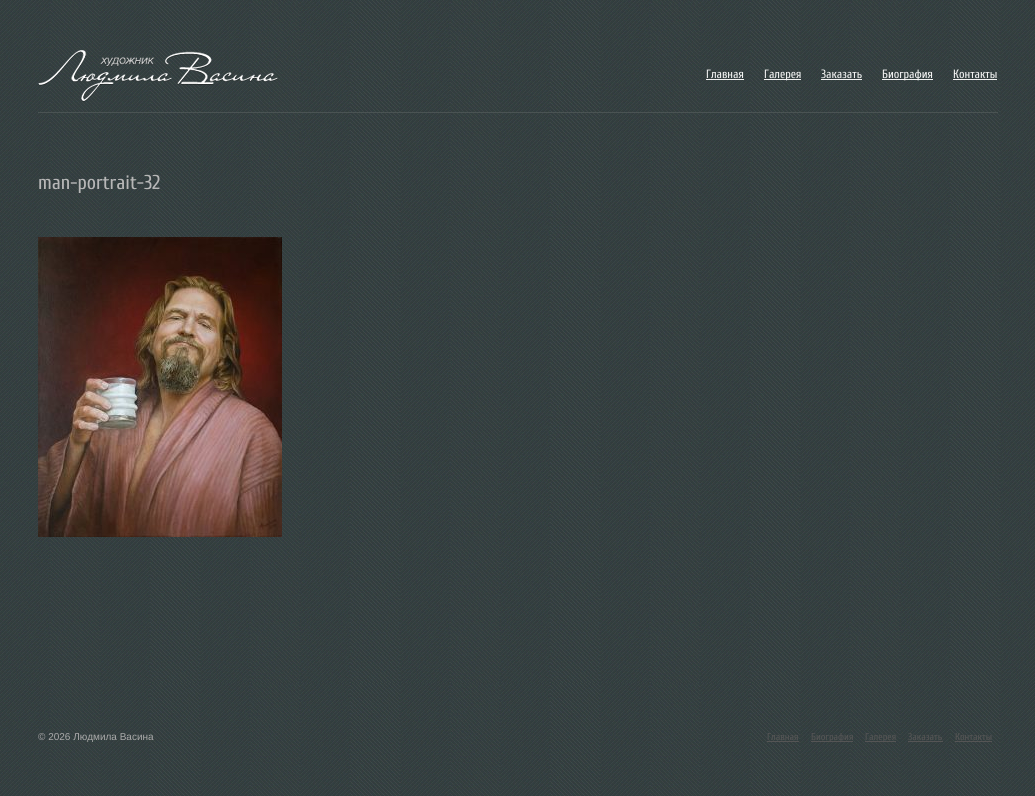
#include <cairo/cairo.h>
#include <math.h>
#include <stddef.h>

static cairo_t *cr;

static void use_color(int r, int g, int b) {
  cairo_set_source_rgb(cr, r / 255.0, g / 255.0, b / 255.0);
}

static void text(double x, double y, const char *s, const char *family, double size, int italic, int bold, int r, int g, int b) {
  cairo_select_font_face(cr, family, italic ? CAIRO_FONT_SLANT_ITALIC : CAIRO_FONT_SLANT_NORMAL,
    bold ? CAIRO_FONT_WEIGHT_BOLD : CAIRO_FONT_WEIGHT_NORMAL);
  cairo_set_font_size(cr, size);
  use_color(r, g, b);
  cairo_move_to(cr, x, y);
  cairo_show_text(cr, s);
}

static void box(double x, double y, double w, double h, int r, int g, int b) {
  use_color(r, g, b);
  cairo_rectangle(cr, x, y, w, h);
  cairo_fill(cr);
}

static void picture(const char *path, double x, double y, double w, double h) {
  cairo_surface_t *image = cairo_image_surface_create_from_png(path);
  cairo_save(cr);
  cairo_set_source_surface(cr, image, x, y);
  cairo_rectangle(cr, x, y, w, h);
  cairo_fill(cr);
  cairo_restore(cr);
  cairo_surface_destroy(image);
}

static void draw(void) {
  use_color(255, 255, 255);
  cairo_paint(cr);
  picture("img_01.png", 0, 603, 1035, 80);
  picture("img_02.png", 0, 0, 1035, 112);
  picture("img_03.png", 38, 50, 240, 52);
  box(706, 79, 38, 1, 242, 242, 242);
  box(764, 79, 37, 1, 242, 242, 242);
  box(821, 79, 41, 1, 242, 242, 242);
  box(882, 79, 51, 1, 242, 242, 242);
  box(953, 79, 44, 1, 242, 242, 242);
  picture("img_04.png", 0, 112, 1035, 491);
  box(38, 112, 960, 1, 74, 83, 83);
  picture("img_05.png", 38, 237, 244, 300);
  picture("img_06.png", 0, 683, 1035, 113);
  box(767, 741, 32, 1, 85, 85, 85);
  box(811, 741, 42, 1, 85, 85, 85);
  box(865, 741, 31, 1, 85, 85, 85);
  box(908, 741, 35, 1, 85, 85, 85);
  box(955, 741, 37, 1, 85, 85, 85);
  text(706, 78, "Главная", "Cuprum", 12, 0, 0, 242, 242, 242);
  text(764, 78, "Галерея", "Cuprum", 12, 0, 0, 242, 242, 242);
  text(821, 78, "Заказать", "Cuprum", 12, 0, 0, 242, 242, 242);
  text(882, 78, "Биография", "Cuprum", 12, 0, 0, 242, 242, 242);
  text(953, 78, "Контакты", "Cuprum", 12, 0, 0, 242, 242, 242);
  text(38, 189, "man-portrait-32", "Cuprum", 20, 0, 0, 183, 183, 183);
  text(38, 740, "© 2026 Людмила Васина", "Liberation Sans", 10, 0, 0, 170, 170, 170);
  text(767, 740, "Главная", "Cuprum", 10, 0, 0, 85, 85, 85);
  text(811, 740, "Биография", "Cuprum", 10, 0, 0, 85, 85, 85);
  text(865, 740, "Галерея", "Cuprum", 10, 0, 0, 85, 85, 85);
  text(908, 740, "Заказать", "Cuprum", 10, 0, 0, 85, 85, 85);
  text(955, 740, "Контакты", "Cuprum", 10, 0, 0, 85, 85, 85);
}

int main(void) {
  cairo_surface_t *surface = cairo_image_surface_create(CAIRO_FORMAT_RGB24, 1035, 796);
  cr = cairo_create(surface);
  cairo_font_options_t *options = cairo_font_options_create();
  cairo_font_options_set_hint_metrics(options, CAIRO_HINT_METRICS_OFF);
  cairo_font_options_set_hint_style(options, CAIRO_HINT_STYLE_NONE);
  cairo_set_font_options(cr, options);
  cairo_set_miter_limit(cr, 4);
  draw();
  cairo_surface_write_to_png(surface, "out.png");
  cairo_font_options_destroy(options);
  cairo_destroy(cr);
  cairo_surface_destroy(surface);
  return 0;
}
